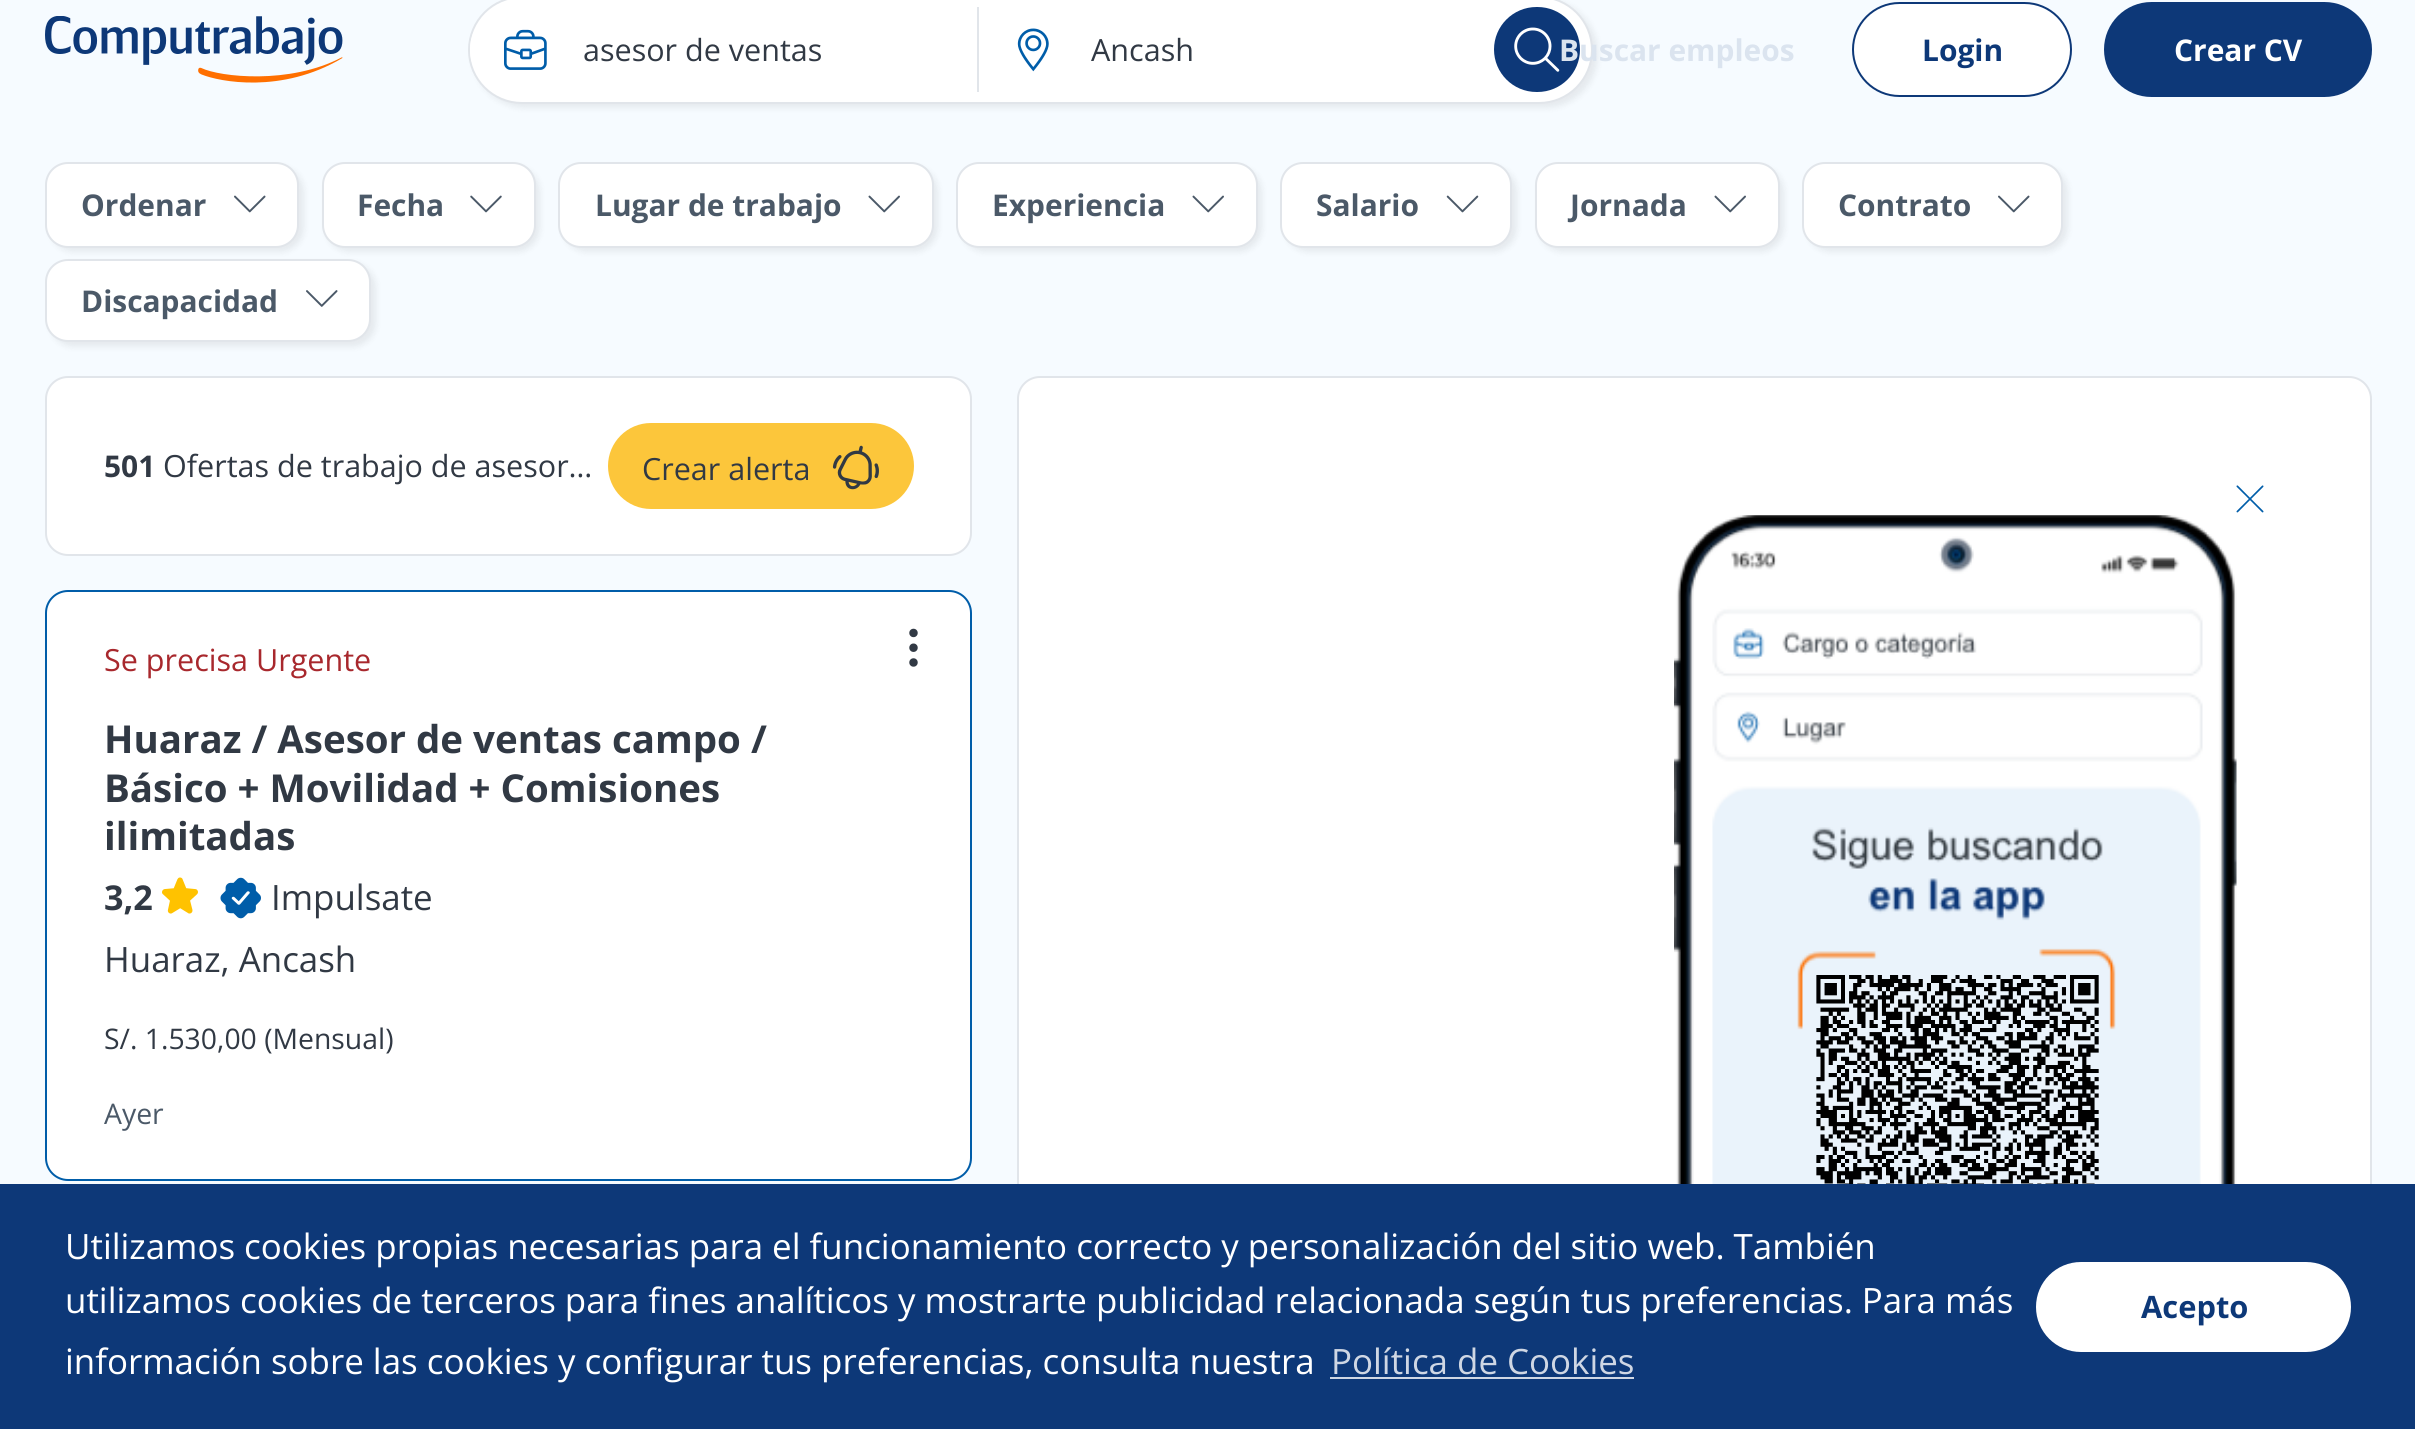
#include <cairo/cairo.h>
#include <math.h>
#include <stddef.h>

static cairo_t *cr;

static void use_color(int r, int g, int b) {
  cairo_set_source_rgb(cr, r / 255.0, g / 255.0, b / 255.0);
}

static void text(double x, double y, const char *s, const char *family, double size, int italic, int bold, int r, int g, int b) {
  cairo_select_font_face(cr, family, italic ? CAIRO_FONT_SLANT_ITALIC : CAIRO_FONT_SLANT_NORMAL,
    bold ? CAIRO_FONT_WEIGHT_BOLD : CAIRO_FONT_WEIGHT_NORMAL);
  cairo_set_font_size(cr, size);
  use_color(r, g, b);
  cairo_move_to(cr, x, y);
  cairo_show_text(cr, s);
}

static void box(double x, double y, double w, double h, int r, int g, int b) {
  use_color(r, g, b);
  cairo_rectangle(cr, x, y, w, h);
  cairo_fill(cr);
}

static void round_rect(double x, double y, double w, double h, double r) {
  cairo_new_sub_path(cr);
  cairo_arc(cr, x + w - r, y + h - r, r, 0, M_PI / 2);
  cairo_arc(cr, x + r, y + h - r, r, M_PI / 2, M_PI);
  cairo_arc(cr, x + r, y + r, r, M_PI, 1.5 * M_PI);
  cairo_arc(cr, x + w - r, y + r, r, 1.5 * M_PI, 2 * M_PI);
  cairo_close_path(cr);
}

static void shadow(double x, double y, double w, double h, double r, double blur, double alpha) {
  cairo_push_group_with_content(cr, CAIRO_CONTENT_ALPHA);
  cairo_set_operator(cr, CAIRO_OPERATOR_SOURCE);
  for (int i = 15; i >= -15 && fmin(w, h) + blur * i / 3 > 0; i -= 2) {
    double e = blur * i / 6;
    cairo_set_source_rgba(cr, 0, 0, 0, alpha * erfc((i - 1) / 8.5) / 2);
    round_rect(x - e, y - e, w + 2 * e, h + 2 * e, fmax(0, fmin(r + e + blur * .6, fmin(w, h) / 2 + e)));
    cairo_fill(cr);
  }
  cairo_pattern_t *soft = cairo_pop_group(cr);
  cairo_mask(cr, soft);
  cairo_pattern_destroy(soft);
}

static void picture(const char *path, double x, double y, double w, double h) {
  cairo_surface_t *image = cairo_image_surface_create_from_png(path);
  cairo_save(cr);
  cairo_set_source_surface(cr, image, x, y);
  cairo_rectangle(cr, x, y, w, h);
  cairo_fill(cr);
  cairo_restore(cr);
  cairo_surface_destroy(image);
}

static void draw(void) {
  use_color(246, 251, 255);
  cairo_paint(cr);
  picture("img_01.png", 45, 16, 298, 67);
  use_color(0, 0, 0);
  shadow(473, 0, 1125, 108, 54, 3.5, 0.07);
  use_color(255, 255, 255);
  round_rect(469, -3, 1123, 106, 53);
  cairo_fill_preserve(cr);
  use_color(225, 229, 234);
  cairo_stroke(cr);
  use_color(255, 255, 255);
  round_rect(470, 7, 507, 85, 42.5);
  cairo_fill(cr);
  picture("img_02.png", 504, 29, 43, 41);
  box(977, 7, 2, 85, 225, 229, 234);
  picture("img_03.png", 1017, 28, 32, 44);
  use_color(13, 56, 120);
  round_rect(1494, 7, 86, 85, 42.5);
  cairo_fill(cr);
  picture("img_04.png", 1514, 27, 46, 45);
  use_color(255, 255, 255);
  round_rect(1853, 3, 218, 93, 46.5);
  cairo_fill_preserve(cr);
  use_color(13, 56, 120);
  cairo_stroke(cr);
  round_rect(2104, 2, 268, 95, 47.5);
  cairo_fill(cr);
  use_color(0, 0, 0);
  shadow(50, 167, 254, 85, 23, 3.5, 0.07);
  use_color(255, 255, 255);
  round_rect(46, 163, 252, 84, 22);
  cairo_fill_preserve(cr);
  use_color(225, 229, 234);
  cairo_stroke(cr);
  picture("img_05.png", 234, 195, 32, 18);
  use_color(0, 0, 0);
  shadow(326, 167, 214, 85, 23, 3.5, 0.07);
  use_color(255, 255, 255);
  round_rect(323, 163, 212, 84, 22);
  cairo_fill_preserve(cr);
  use_color(225, 229, 234);
  cairo_stroke(cr);
  picture("img_06.png", 470, 195, 32, 18);
  use_color(0, 0, 0);
  shadow(563, 167, 375, 85, 23, 3.5, 0.07);
  use_color(255, 255, 255);
  round_rect(559, 163, 374, 84, 22);
  cairo_fill_preserve(cr);
  use_color(225, 229, 234);
  cairo_stroke(cr);
  picture("img_07.png", 868, 195, 32, 18);
  use_color(0, 0, 0);
  shadow(961, 167, 301, 85, 23, 3.5, 0.07);
  use_color(255, 255, 255);
  round_rect(957, 163, 300, 84, 22);
  cairo_fill_preserve(cr);
  use_color(225, 229, 234);
  cairo_stroke(cr);
  picture("img_07.png", 1192, 195, 32, 18);
  use_color(0, 0, 0);
  shadow(1285, 167, 232, 85, 23, 3.5, 0.07);
  use_color(255, 255, 255);
  round_rect(1281, 163, 230, 84, 22);
  cairo_fill_preserve(cr);
  use_color(225, 229, 234);
  cairo_stroke(cr);
  picture("img_08.png", 1446, 195, 33, 18);
  use_color(0, 0, 0);
  shadow(1539, 167, 245, 85, 23, 3.5, 0.07);
  use_color(255, 255, 255);
  round_rect(1536, 163, 243, 84, 22);
  cairo_fill_preserve(cr);
  use_color(225, 229, 234);
  cairo_stroke(cr);
  picture("img_07.png", 1714, 195, 32, 18);
  use_color(0, 0, 0);
  shadow(1807, 167, 261, 85, 23, 3.5, 0.07);
  use_color(255, 255, 255);
  round_rect(1803, 163, 259, 84, 22);
  cairo_fill_preserve(cr);
  use_color(225, 229, 234);
  cairo_stroke(cr);
  picture("img_05.png", 1998, 195, 32, 18);
  use_color(0, 0, 0);
  shadow(50, 263, 326, 84, 23, 3.5, 0.07);
  use_color(255, 255, 255);
  round_rect(46, 260, 324, 81, 22);
  cairo_fill_preserve(cr);
  use_color(225, 229, 234);
  cairo_stroke(cr);
  picture("img_09.png", 306, 290, 32, 17);
  use_color(255, 255, 255);
  round_rect(46, 377, 925, 178, 22);
  cairo_fill_preserve(cr);
  use_color(225, 229, 234);
  cairo_stroke(cr);
  use_color(252, 198, 59);
  round_rect(608, 423, 306, 86, 43);
  cairo_fill(cr);
  picture("img_10.png", 832, 445, 47, 45);
  use_color(255, 255, 255);
  round_rect(46, 591, 925, 589, 22);
  cairo_fill_preserve(cr);
  use_color(0, 93, 169);
  cairo_stroke(cr);
  picture("img_11.png", 909, 628, 9, 39);
  picture("img_12.png", 162, 877, 36, 37);
  picture("img_13.png", 220, 877, 41, 42);
  use_color(255, 255, 255);
  round_rect(1018, 377, 1353, 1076, 22);
  cairo_fill_preserve(cr);
  use_color(225, 229, 234);
  cairo_stroke(cr);
  picture("img_14.png", 2236, 485, 28, 28);
  picture("img_15.png", 1674, 515, 563, 669);
  picture("img_16.png", 1816, 975, 283, 209);
  box(0, 1184, 2415, 245, 13, 56, 120);
  box(1330, 1377, 304, 2, 207, 215, 228);
  use_color(255, 255, 255);
  round_rect(2036, 1262, 315, 90, 45);
  cairo_fill(cr);
  text(583, 61, "asesor de ventas", "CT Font", 31.5, 0, 0, 49, 57, 68);
  text(1091, 61, "Ancash", "CT Font", 31.5, 0, 0, 49, 57, 68);
  text(1559, 61, "Buscar empleos", "CT Font", 31.5, 0, 1, 219, 228, 239);
  text(1922, 61, "Login", "CT Font", 31.5, 0, 1, 13, 56, 120);
  text(2174, 61, "Crear CV", "CT Font", 31.5, 0, 1, 255, 255, 255);
  text(81, 216, "Ordenar", "CT Font", 31.5, 0, 1, 75, 89, 104);
  text(357, 216, "Fecha", "CT Font", 31.5, 0, 1, 75, 89, 104);
  text(595, 216, "Lugar de trabajo", "CT Font", 31.5, 0, 1, 75, 89, 104);
  text(992, 216, "Experiencia", "CT Font", 31.5, 0, 1, 75, 89, 104);
  text(1316, 216, "Salario", "CT Font", 31.5, 0, 1, 75, 89, 104);
  text(1570, 216, "Jornada", "CT Font", 31.5, 0, 1, 75, 89, 104);
  text(1838, 216, "Contrato", "CT Font", 31.5, 0, 1, 75, 89, 104);
  text(81, 312, "Discapacidad", "CT Font", 31.5, 0, 1, 75, 89, 104);
  text(104, 477, "501", "CT Font", 31.5, 0, 1, 49, 57, 68);
  text(163, 477, "Ofertas de trabajo de asesor…", "CT Font", 31.5, 0, 0, 49, 57, 68);
  text(642, 480, "Crear alerta", "CT Font", 31.5, 0, 0, 49, 57, 68);
  text(104, 671, "Se precisa Urgente", "CT Font", 31.5, 0, 0, 168, 40, 45);
  text(104, 753, "Huaraz / Asesor de ventas campo /", "CT Font", 40.5, 0, 1, 49, 57, 68);
  text(104, 802, "Básico + Movilidad + Comisiones", "CT Font", 40.5, 0, 1, 49, 57, 68);
  text(104, 850, "ilimitadas", "CT Font", 40.5, 0, 1, 49, 57, 68);
  text(104, 910, "3,2", "CT Font", 36, 0, 1, 49, 57, 68);
  text(271, 910, "Impulsate", "CT Font", 36, 0, 0, 49, 57, 68);
  text(104, 972, "Huaraz, Ancash", "CT Font", 36, 0, 0, 49, 57, 68);
  text(104, 1049, "S/. 1.530,00 (Mensual)", "CT Font", 29.25, 0, 0, 49, 57, 68);
  text(104, 1124, "Ayer", "CT Font", 29.25, 0, 0, 75, 89, 104);
  text(65, 1259, "Utilizamos cookies propias necesarias para el funcionamiento correcto y personalización del sitio web. También", "CT Font", 36, 0, 0, 255, 255, 255);
  text(65, 1313, "utilizamos cookies de terceros para fines analíticos y mostrarte publicidad relacionada según tus preferencias. Para más", "CT Font", 36, 0, 0, 255, 255, 255);
  text(65, 1374, "información sobre las cookies y configurar tus preferencias, consulta nuestra", "CT Font", 36, 0, 0, 255, 255, 255);
  text(1331, 1374, "Política de Cookies", "CT Font", 36, 0, 0, 207, 215, 228);
  text(2141, 1318, "Acepto", "CT Font", 32.5, 0, 1, 13, 56, 120);
}

int main(void) {
  cairo_surface_t *surface = cairo_image_surface_create(CAIRO_FORMAT_RGB24, 2415, 1429);
  cr = cairo_create(surface);
  cairo_font_options_t *options = cairo_font_options_create();
  cairo_font_options_set_hint_metrics(options, CAIRO_HINT_METRICS_OFF);
  cairo_font_options_set_hint_style(options, CAIRO_HINT_STYLE_NONE);
  cairo_set_font_options(cr, options);
  cairo_set_miter_limit(cr, 4);
  draw();
  cairo_surface_write_to_png(surface, "out.png");
  cairo_font_options_destroy(options);
  cairo_destroy(cr);
  cairo_surface_destroy(surface);
  return 0;
}
